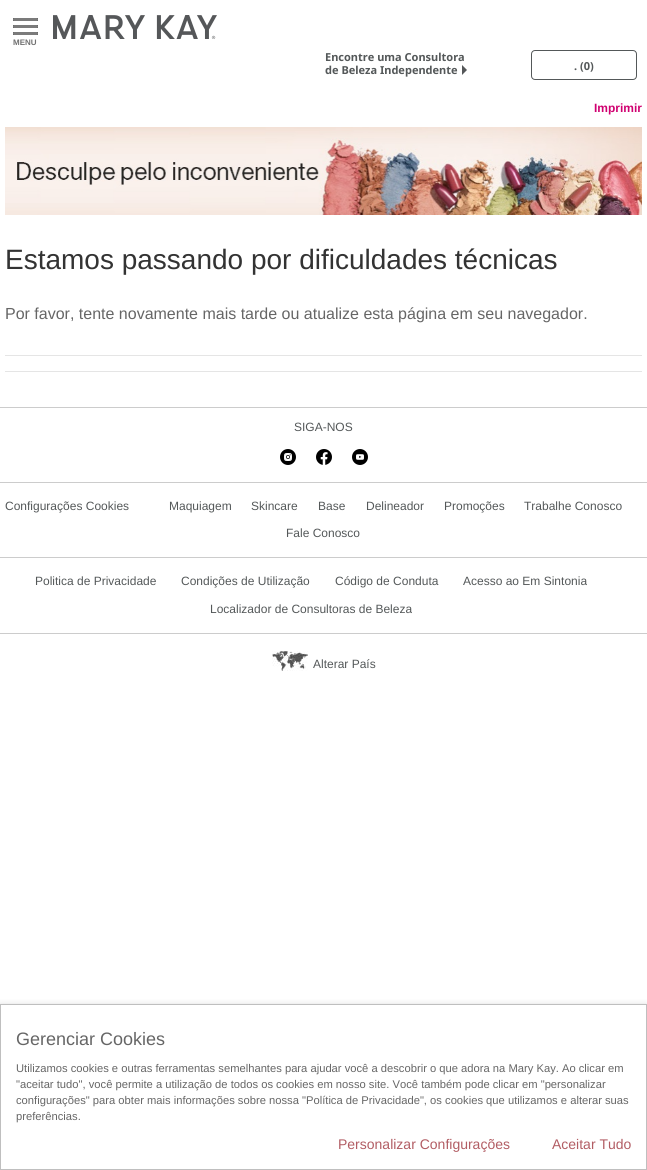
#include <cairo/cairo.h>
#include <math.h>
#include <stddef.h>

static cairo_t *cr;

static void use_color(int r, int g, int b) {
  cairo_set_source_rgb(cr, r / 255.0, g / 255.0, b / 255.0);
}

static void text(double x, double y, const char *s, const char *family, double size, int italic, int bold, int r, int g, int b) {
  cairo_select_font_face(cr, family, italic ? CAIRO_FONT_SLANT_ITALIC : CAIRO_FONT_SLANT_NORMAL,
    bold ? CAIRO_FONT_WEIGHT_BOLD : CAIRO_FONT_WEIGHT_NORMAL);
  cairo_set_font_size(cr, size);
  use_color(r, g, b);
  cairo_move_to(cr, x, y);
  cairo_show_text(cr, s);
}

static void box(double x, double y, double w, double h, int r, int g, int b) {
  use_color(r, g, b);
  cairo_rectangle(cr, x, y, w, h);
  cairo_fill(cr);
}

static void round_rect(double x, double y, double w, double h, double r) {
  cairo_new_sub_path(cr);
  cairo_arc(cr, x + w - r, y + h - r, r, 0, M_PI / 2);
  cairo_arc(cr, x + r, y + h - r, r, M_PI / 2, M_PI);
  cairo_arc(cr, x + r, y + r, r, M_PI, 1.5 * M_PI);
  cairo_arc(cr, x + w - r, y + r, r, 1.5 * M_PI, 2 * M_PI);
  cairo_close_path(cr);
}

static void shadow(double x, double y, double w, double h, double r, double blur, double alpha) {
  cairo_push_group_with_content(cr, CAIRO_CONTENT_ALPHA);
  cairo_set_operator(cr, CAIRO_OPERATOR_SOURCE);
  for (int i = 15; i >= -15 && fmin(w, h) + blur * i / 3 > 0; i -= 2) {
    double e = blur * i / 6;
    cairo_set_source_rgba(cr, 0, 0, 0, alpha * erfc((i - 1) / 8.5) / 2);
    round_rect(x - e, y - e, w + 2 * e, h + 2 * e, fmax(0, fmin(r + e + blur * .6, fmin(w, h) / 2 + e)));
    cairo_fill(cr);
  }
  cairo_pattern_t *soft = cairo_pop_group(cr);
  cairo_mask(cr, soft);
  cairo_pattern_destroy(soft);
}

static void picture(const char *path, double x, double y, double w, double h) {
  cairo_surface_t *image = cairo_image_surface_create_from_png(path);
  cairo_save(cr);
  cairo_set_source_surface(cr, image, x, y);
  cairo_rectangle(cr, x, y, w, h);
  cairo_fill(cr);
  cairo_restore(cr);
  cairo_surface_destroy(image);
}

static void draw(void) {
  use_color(255, 255, 255);
  cairo_paint(cr);
  picture("img_01.png", 53, 15, 164, 24);
  picture("img_02.png", 13, 18, 25, 17);
  use_color(85, 87, 89);
  cairo_new_path(cr);
  cairo_move_to(cr, 462, 75);
  cairo_line_to(cr, 462, 65);
  cairo_line_to(cr, 467, 70);
  cairo_close_path(cr);
  cairo_fill(cr);
  round_rect(531.5, 50.5, 105, 29, 3.5);
  use_color(84, 88, 89);
  cairo_set_line_width(cr, 1);
  cairo_stroke(cr);
  picture("img_03.png", 5, 127, 637, 88);
  box(5, 355, 637, 1, 229, 229, 229);
  box(5, 371, 637, 1, 229, 229, 229);
  box(0, 407, 647, 1, 204, 204, 204);
  box(0, 557, 647, 1, 204, 204, 204);
  picture("img_04.png", 280, 449, 16, 16);
  picture("img_05.png", 316, 449, 16, 16);
  picture("img_06.png", 352, 449, 16, 16);
  box(0, 482, 647, 1, 204, 204, 204);
  box(0, 633, 647, 1, 204, 204, 204);
  picture("img_07.png", 272, 651, 36, 20);
  cairo_save(cr);
  cairo_rectangle(cr, 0, 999, 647, 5);
  cairo_clip(cr);
  use_color(153, 153, 153);
  shadow(0, 1009, 647, 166, 0, 5, 1);
  cairo_restore(cr);
  cairo_rectangle(cr, 0.5, 1004.5, 646, 165);
  use_color(191, 191, 191);
  cairo_stroke(cr);
  text(13, 45, "MENU", "Liberation Sans", 8, 0, 1, 112, 112, 112);
  text(325, 61, "Encontre uma Consultora", "Noto Sans", 11, 0, 1, 84, 88, 89);
  text(325, 74, "de Beleza Independente", "Noto Sans", 11, 0, 1, 84, 88, 89);
  text(574, 70, ". (0)", "Noto Sans", 11, 0, 1, 84, 88, 89);
  text(594, 112, "Imprimir", "Liberation Sans", 12, 0, 1, 208, 0, 112);
  text(5, 269, "Estamos passando por dificuldades técnicas", "Liberation Sans", 28, 0, 0, 51, 51, 51);
  text(5, 319, "Por favor, tente novamente mais tarde ou atualize esta página em seu navegador.", "Liberation Sans", 16, 0, 0, 102, 102, 102);
  text(294, 431, "SIGA-NOS", "Liberation Sans", 12, 0, 0, 84, 88, 89);
  text(5, 510, "Configurações Cookies", "Liberation Sans", 12, 0, 0, 84, 88, 89);
  text(169, 510, "Maquiagem", "Liberation Sans", 12, 0, 0, 84, 88, 89);
  text(251, 510, "Skincare", "Liberation Sans", 12, 0, 0, 84, 88, 89);
  text(318, 510, "Base", "Liberation Sans", 12, 0, 0, 84, 88, 89);
  text(366, 510, "Delineador", "Liberation Sans", 12, 0, 0, 84, 88, 89);
  text(444, 510, "Promoções", "Liberation Sans", 12, 0, 0, 84, 88, 89);
  text(524, 510, "Trabalhe Conosco", "Liberation Sans", 12, 0, 0, 84, 88, 89);
  text(286, 537, "Fale Conosco", "Liberation Sans", 12, 0, 0, 84, 88, 89);
  text(35, 585, "Politica de Privacidade", "Liberation Sans", 12, 0, 0, 84, 88, 89);
  text(181, 585, "Condições de Utilização", "Liberation Sans", 12, 0, 0, 84, 88, 89);
  text(335, 585, "Código de Conduta", "Liberation Sans", 12, 0, 0, 84, 88, 89);
  text(463, 585, "Acesso ao Em Sintonia", "Liberation Sans", 12, 0, 0, 84, 88, 89);
  text(210, 613, "Localizador de Consultoras de Beleza", "Liberation Sans", 12, 0, 0, 84, 88, 89);
  text(313, 668, "Alterar País", "Liberation Sans", 12, 0, 0, 84, 88, 89);
  text(16, 1045, "Gerenciar Cookies", "Liberation Sans", 18, 0, 0, 102, 102, 102);
  text(16, 1072, "Utilizamos cookies e outras ferramentas semelhantes para ajudar você a descobrir o que adora na Mary Kay. Ao clicar em", "Liberation Sans", 11.2, 0, 0, 102, 102, 102);
  text(16, 1088, "\"aceitar tudo\", você permite a utilização de todos os cookies em nosso site. Você também pode clicar em \"personalizar", "Liberation Sans", 11.2, 0, 0, 102, 102, 102);
  text(16, 1104, "configurações\" para obter mais informações sobre nossa \"Política de Privacidade\", os cookies que utilizamos e alterar suas", "Liberation Sans", 11.2, 0, 0, 102, 102, 102);
  text(16, 1120, "preferências.", "Liberation Sans", 11.2, 0, 0, 102, 102, 102);
  text(338, 1149, "Personalizar Configurações", "Liberation Sans", 14, 0, 0, 178, 93, 100);
  text(552, 1149, "Aceitar Tudo", "Liberation Sans", 14, 0, 0, 178, 93, 100);
}

int main(void) {
  cairo_surface_t *surface = cairo_image_surface_create(CAIRO_FORMAT_RGB24, 647, 1170);
  cr = cairo_create(surface);
  cairo_font_options_t *options = cairo_font_options_create();
  cairo_font_options_set_hint_metrics(options, CAIRO_HINT_METRICS_OFF);
  cairo_font_options_set_hint_style(options, CAIRO_HINT_STYLE_NONE);
  cairo_set_font_options(cr, options);
  cairo_set_miter_limit(cr, 4);
  draw();
  cairo_surface_write_to_png(surface, "out.png");
  cairo_font_options_destroy(options);
  cairo_destroy(cr);
  cairo_surface_destroy(surface);
  return 0;
}
